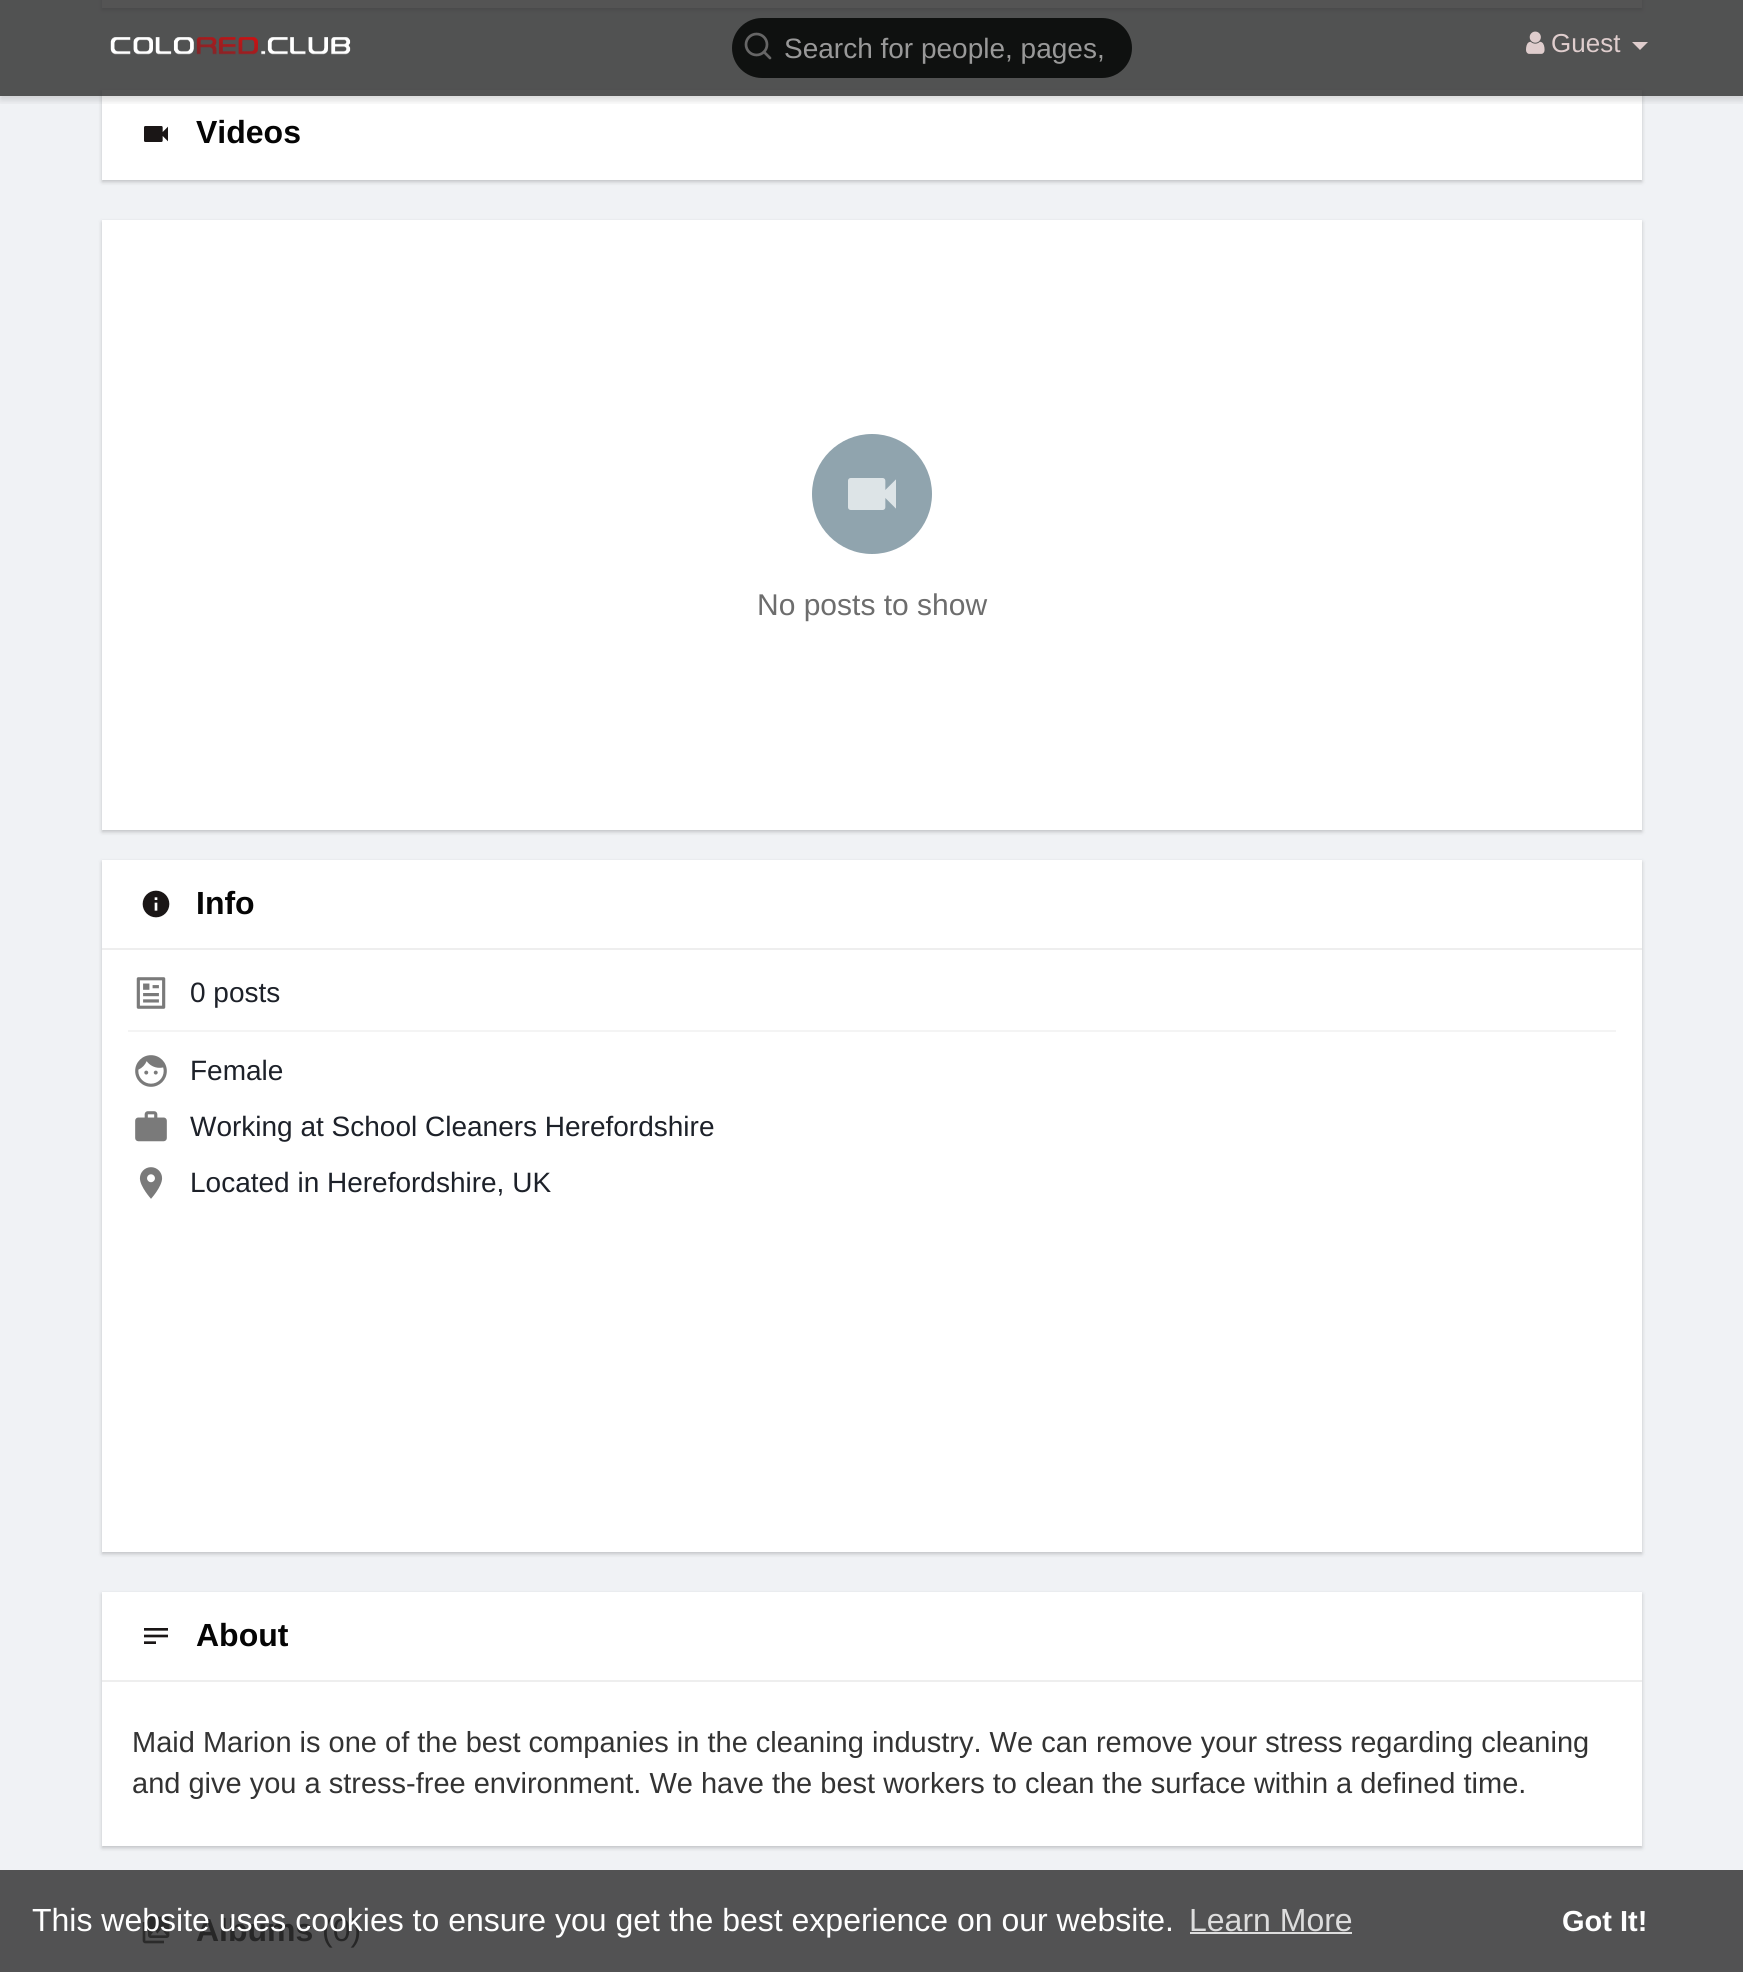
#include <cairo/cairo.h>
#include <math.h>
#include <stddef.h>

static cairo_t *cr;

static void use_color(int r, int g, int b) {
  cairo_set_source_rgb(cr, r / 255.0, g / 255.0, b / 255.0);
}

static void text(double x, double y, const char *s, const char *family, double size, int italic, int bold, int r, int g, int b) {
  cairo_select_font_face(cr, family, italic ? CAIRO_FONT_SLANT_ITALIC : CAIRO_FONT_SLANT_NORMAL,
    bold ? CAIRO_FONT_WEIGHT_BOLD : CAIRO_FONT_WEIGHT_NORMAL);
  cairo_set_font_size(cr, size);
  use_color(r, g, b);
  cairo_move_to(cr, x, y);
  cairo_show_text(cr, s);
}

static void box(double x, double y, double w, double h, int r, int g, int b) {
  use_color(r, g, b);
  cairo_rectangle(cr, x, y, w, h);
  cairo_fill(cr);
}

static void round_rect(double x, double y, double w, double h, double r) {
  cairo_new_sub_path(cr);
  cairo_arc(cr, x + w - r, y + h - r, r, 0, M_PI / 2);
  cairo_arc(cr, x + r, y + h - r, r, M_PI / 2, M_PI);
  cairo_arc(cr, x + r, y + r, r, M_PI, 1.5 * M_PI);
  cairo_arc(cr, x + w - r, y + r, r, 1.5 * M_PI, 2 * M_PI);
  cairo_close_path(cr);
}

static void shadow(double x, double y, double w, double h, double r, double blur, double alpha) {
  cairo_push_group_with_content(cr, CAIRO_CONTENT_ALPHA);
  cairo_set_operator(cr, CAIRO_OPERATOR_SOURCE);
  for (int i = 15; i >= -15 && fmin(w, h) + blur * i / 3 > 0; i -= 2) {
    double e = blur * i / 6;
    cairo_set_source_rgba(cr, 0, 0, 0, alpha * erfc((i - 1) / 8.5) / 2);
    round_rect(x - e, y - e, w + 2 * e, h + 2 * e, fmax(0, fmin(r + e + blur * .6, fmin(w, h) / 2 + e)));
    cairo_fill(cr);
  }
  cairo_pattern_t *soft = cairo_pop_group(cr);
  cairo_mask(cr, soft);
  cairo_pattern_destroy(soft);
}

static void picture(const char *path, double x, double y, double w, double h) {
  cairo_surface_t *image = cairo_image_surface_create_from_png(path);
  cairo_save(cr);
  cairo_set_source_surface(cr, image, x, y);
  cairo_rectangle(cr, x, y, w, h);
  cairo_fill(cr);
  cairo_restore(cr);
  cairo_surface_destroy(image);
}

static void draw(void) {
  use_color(240, 242, 245);
  cairo_paint(cr);
  box(0, 1870, 1743, 102, 82, 82, 83);
  use_color(0, 0, 0);
  shadow(102, -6, 1540, 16, 0, 2, 0.2);
  box(102, 0, 1540, 8, 255, 255, 255);
  use_color(0, 0, 0);
  shadow(102, 92, 1540, 90, 0, 2, 0.2);
  box(102, 90, 1540, 90, 255, 255, 255);
  cairo_save(cr);
  cairo_rectangle(cr, 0, 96, 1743, 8);
  cairo_clip(cr);
  use_color(0, 0, 0);
  shadow(0, 4, 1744, 96, 0, 4, 0.15);
  cairo_restore(cr);
  cairo_set_source_rgba(cr, 0.184, 0.184, 0.184, 0.82);
  cairo_rectangle(cr, 0, 0, 1743, 96);
  cairo_fill(cr);
  picture("img_01.png", 110, 37, 241, 18);
  use_color(15, 17, 16);
  round_rect(732, 18, 400, 60, 30);
  cairo_fill(cr);
  cairo_arc(cr, 756.5, 44.5, 10.5, 0, 2 * M_PI);
  use_color(102, 102, 102);
  cairo_set_line_width(cr, 2.7);
  cairo_stroke(cr);
  cairo_new_path(cr);
  cairo_move_to(cr, 770, 58);
  cairo_line_to(cr, 764, 52);
  cairo_set_line_cap(cr, CAIRO_LINE_CAP_ROUND);
  cairo_set_line_join(cr, CAIRO_LINE_JOIN_ROUND);
  cairo_stroke(cr);
  picture("img_02.png", 1526, 31, 19, 23);
  use_color(223, 205, 205);
  cairo_new_path(cr);
  cairo_move_to(cr, 1632, 42);
  cairo_line_to(cr, 1648, 42);
  cairo_line_to(cr, 1640, 50);
  cairo_close_path(cr);
  cairo_fill(cr);
  picture("img_03.png", 144, 126, 24, 16);
  use_color(0, 0, 0);
  shadow(102, 222, 1540, 610, 0, 2, 0.2);
  box(102, 220, 1540, 610, 255, 255, 255);
  use_color(144, 164, 174);
  cairo_arc(cr, 872, 494, 60, 0, 2 * M_PI);
  cairo_fill(cr);
  picture("img_04.png", 848, 478, 48, 32);
  use_color(0, 0, 0);
  shadow(102, 862, 1540, 692, 0, 2, 0.2);
  box(102, 860, 1540, 692, 255, 255, 255);
  box(102, 948, 1540, 2, 238, 238, 238);
  picture("img_05.png", 142, 890, 28, 28);
  picture("img_06.png", 136, 977, 30, 32);
  box(128, 1030, 1488, 2, 244, 244, 244);
  picture("img_07.png", 135, 1055, 32, 32);
  picture("img_08.png", 135, 1111, 32, 31);
  picture("img_09.png", 139, 1167, 24, 32);
  use_color(0, 0, 0);
  shadow(102, 1594, 1540, 254, 0, 2, 0.2);
  box(102, 1592, 1540, 254, 255, 255, 255);
  box(102, 1680, 1540, 2, 238, 238, 238);
  picture("img_10.png", 144, 1628, 24, 16);
  picture("img_11.png", 142, 1916, 28, 28);
  box(1190, 1932, 162, 2, 221, 221, 221);
  text(784, 58, "Search for people, pages,", "Liberation Sans", 28, 0, 0, 153, 153, 153);
  text(1551, 52, "Guest", "Liberation Sans", 26, 0, 0, 223, 205, 205);
  text(196, 143, "Videos", "Liberation Sans", 32, 0, 1, 5, 5, 5);
  text(757, 615, "No posts to show", "Liberation Sans", 30, 0, 0, 109, 109, 109);
  text(196, 914, "Info", "Liberation Sans", 32, 0, 1, 5, 5, 5);
  text(190, 1002, "0 posts", "Liberation Sans", 28, 0, 0, 29, 33, 41);
  text(190, 1080, "Female", "Liberation Sans", 28, 0, 0, 29, 33, 41);
  text(190, 1136, "Working at School Cleaners Herefordshire", "Liberation Sans", 28, 0, 0, 29, 33, 41);
  text(190, 1192, "Located in Herefordshire, UK", "Liberation Sans", 28, 0, 0, 29, 33, 41);
  text(196, 1646, "About", "Liberation Sans", 32, 0, 1, 5, 5, 5);
  text(132, 1752, "Maid Marion is one of the best companies in the cleaning industry. We can remove your stress regarding cleaning", "Liberation Sans", 29, 0, 0, 51, 51, 51);
  text(132, 1793, "and give you a stress-free environment. We have the best workers to clean the surface within a defined time.", "Liberation Sans", 29, 0, 0, 51, 51, 51);
  text(196, 1941, "Albums", "Liberation Sans", 32, 0, 1, 39, 39, 39);
  text(322, 1941, "(0)", "Liberation Sans", 32, 0, 0, 39, 39, 39);
  text(32, 1931, "This website uses cookies to ensure you get the best experience on our website.", "Liberation Sans", 32, 0, 0, 255, 255, 255);
  text(1189, 1931, "Learn More", "Liberation Sans", 32, 0, 0, 221, 221, 221);
  text(1562, 1931, "Got It!", "Liberation Sans", 29, 0, 1, 255, 255, 255);
}

int main(void) {
  cairo_surface_t *surface = cairo_image_surface_create(CAIRO_FORMAT_RGB24, 1743, 1972);
  cr = cairo_create(surface);
  cairo_font_options_t *options = cairo_font_options_create();
  cairo_font_options_set_hint_metrics(options, CAIRO_HINT_METRICS_OFF);
  cairo_font_options_set_hint_style(options, CAIRO_HINT_STYLE_NONE);
  cairo_set_font_options(cr, options);
  cairo_set_miter_limit(cr, 4);
  draw();
  cairo_surface_write_to_png(surface, "out.png");
  cairo_font_options_destroy(options);
  cairo_destroy(cr);
  cairo_surface_destroy(surface);
  return 0;
}
